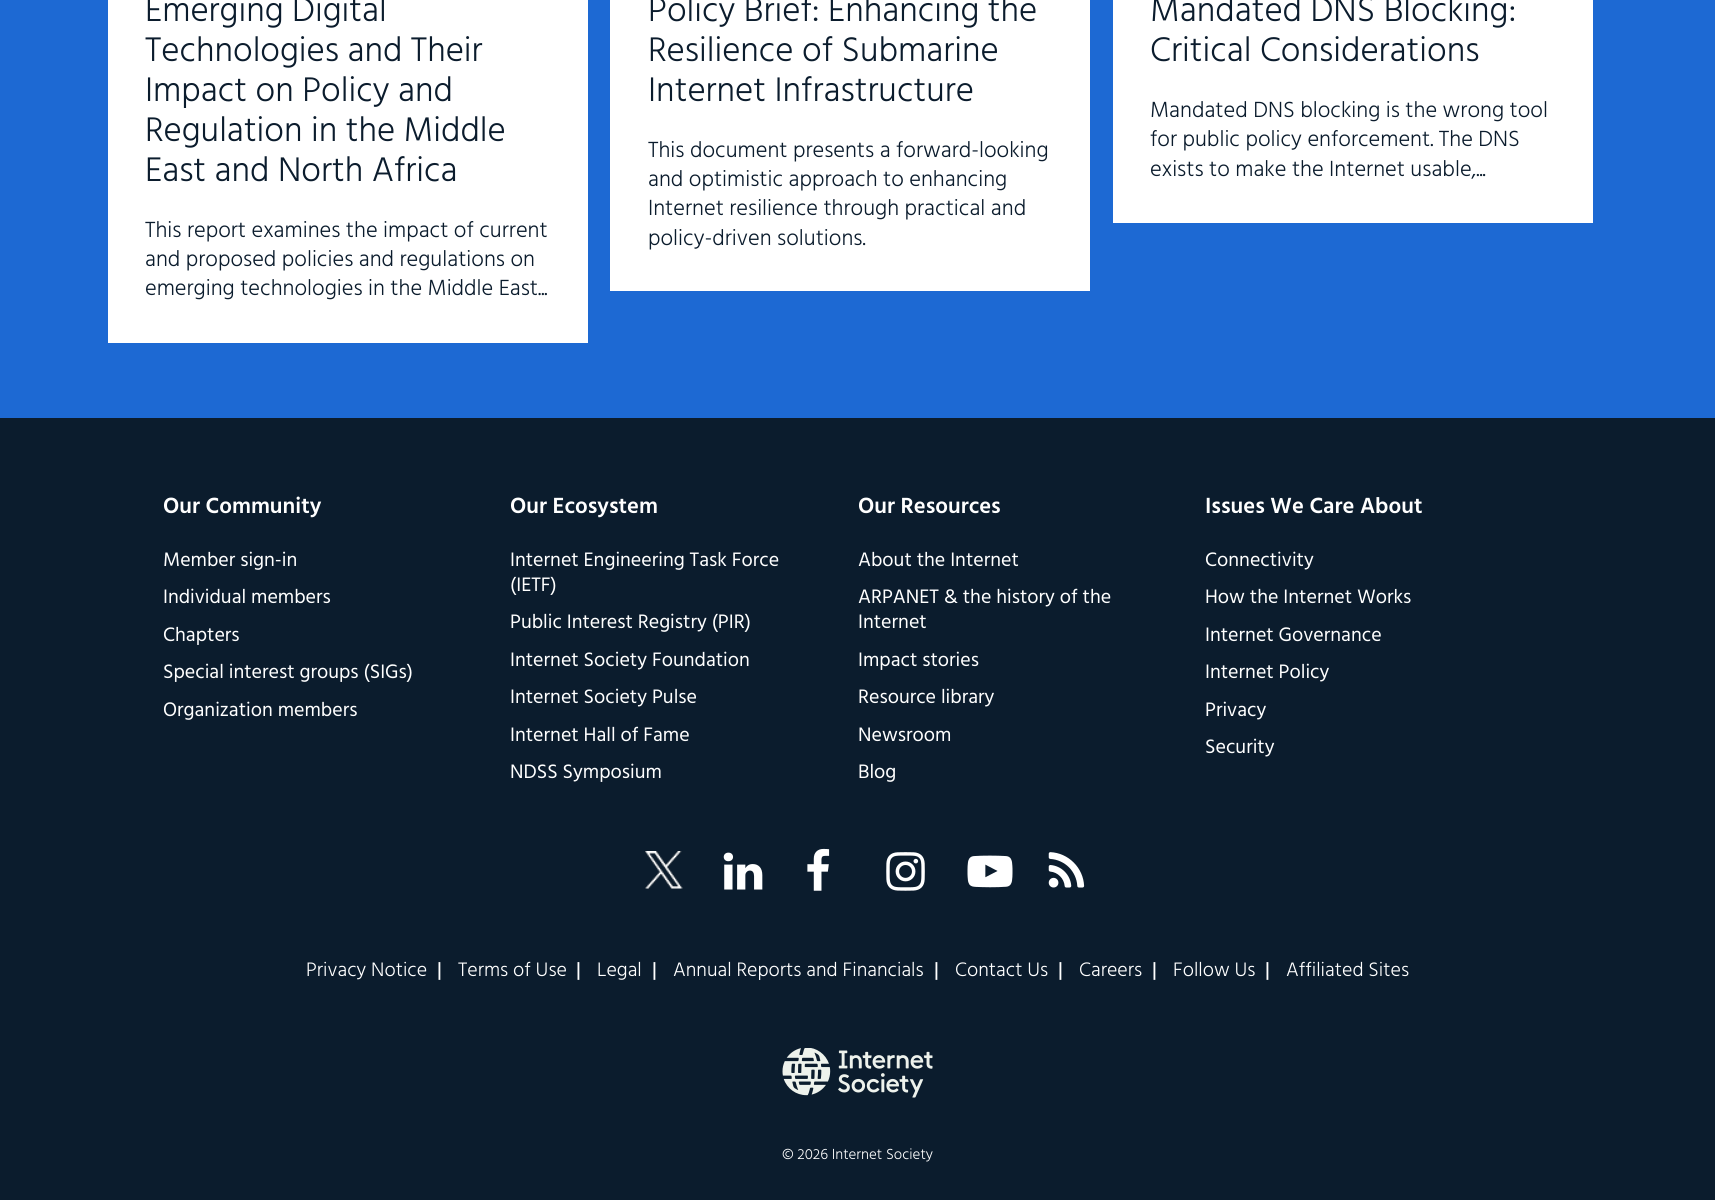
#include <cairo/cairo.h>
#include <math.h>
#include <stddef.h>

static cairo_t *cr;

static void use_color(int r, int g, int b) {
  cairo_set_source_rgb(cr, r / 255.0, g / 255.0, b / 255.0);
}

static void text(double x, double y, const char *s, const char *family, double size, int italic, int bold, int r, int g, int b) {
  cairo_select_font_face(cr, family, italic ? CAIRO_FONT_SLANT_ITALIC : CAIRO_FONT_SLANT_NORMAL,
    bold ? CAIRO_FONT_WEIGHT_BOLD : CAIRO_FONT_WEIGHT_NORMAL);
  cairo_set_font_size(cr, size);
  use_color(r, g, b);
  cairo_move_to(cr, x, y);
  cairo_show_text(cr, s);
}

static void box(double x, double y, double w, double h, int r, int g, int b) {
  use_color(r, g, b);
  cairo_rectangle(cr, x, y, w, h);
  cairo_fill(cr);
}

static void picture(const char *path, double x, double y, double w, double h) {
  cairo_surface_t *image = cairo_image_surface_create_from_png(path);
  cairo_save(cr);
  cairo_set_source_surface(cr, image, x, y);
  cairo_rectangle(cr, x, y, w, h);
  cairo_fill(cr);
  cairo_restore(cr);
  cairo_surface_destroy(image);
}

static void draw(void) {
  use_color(11, 28, 45);
  cairo_paint(cr);
  box(0, 0, 1715, 418, 29, 105, 211);
  box(108, 0, 480, 343, 255, 255, 255);
  box(610, 0, 480, 291, 255, 255, 255);
  box(1113, 0, 480, 223, 255, 255, 255);
  picture("img_01.png", 645, 851, 38, 38);
  picture("img_02.png", 723, 852, 40, 38);
  picture("img_03.png", 807, 848, 23, 43);
  picture("img_04.png", 886, 852, 39, 39);
  picture("img_05.png", 967, 855, 46, 33);
  picture("img_06.png", 1048, 852, 37, 36);
  picture("img_07.png", 782, 1048, 151, 50);
  text(145, 21, "Emerging Digital", "Hind Light", 35, 0, 0, 11, 28, 45);
  text(145, 61, "Technologies and Their", "Hind Light", 35, 0, 0, 11, 28, 45);
  text(145, 101, "Impact on Policy and", "Hind Light", 35, 0, 0, 11, 28, 45);
  text(145, 141, "Regulation in the Middle", "Hind Light", 35, 0, 0, 11, 28, 45);
  text(145, 181, "East and North Africa", "Hind Light", 35, 0, 0, 11, 28, 45);
  text(145, 237, "This report examines the impact of current", "Hind Light", 22.5, 0, 0, 11, 28, 45);
  text(145, 266, "and proposed policies and regulations on", "Hind Light", 22.5, 0, 0, 11, 28, 45);
  text(145, 295, "emerging technologies in the Middle East...", "Hind Light", 22.5, 0, 0, 11, 28, 45);
  text(648, 21, "Policy Brief: Enhancing the", "Hind Light", 35, 0, 0, 11, 28, 45);
  text(648, 61, "Resilience of Submarine", "Hind Light", 35, 0, 0, 11, 28, 45);
  text(648, 101, "Internet Infrastructure", "Hind Light", 35, 0, 0, 11, 28, 45);
  text(648, 157, "This document presents a forward-looking", "Hind Light", 22.5, 0, 0, 11, 28, 45);
  text(648, 186, "and optimistic approach to enhancing", "Hind Light", 22.5, 0, 0, 11, 28, 45);
  text(648, 215, "Internet resilience through practical and", "Hind Light", 22.5, 0, 0, 11, 28, 45);
  text(648, 245, "policy-driven solutions.", "Hind Light", 22.5, 0, 0, 11, 28, 45);
  text(1150, 21, "Mandated DNS Blocking:", "Hind Light", 35, 0, 0, 11, 28, 45);
  text(1150, 61, "Critical Considerations", "Hind Light", 35, 0, 0, 11, 28, 45);
  text(1150, 117, "Mandated DNS blocking is the wrong tool", "Hind Light", 22.5, 0, 0, 11, 28, 45);
  text(1150, 146, "for public policy enforcement. The DNS", "Hind Light", 22.5, 0, 0, 11, 28, 45);
  text(1150, 176, "exists to make the Internet usable,...", "Hind Light", 22.5, 0, 0, 11, 28, 45);
  text(163, 513, "Our Community", "Hind SemiBold", 22.5, 0, 0, 255, 255, 255);
  text(163, 566, "Member sign-in", "Hind", 20, 0, 0, 255, 255, 255);
  text(163, 603, "Individual members", "Hind", 20, 0, 0, 255, 255, 255);
  text(163, 641, "Chapters", "Hind", 20, 0, 0, 255, 255, 255);
  text(163, 678, "Special interest groups (SIGs)", "Hind", 20, 0, 0, 255, 255, 255);
  text(163, 716, "Organization members", "Hind", 20, 0, 0, 255, 255, 255);
  text(510, 513, "Our Ecosystem", "Hind SemiBold", 22.5, 0, 0, 255, 255, 255);
  text(510, 566, "Internet Engineering Task Force", "Hind", 20, 0, 0, 255, 255, 255);
  text(510, 591, "(IETF)", "Hind", 20, 0, 0, 255, 255, 255);
  text(510, 628, "Public Interest Registry (PIR)", "Hind", 20, 0, 0, 255, 255, 255);
  text(510, 666, "Internet Society Foundation", "Hind", 20, 0, 0, 255, 255, 255);
  text(510, 703, "Internet Society Pulse", "Hind", 20, 0, 0, 255, 255, 255);
  text(510, 741, "Internet Hall of Fame", "Hind", 20, 0, 0, 255, 255, 255);
  text(510, 778, "NDSS Symposium", "Hind", 20, 0, 0, 255, 255, 255);
  text(858, 513, "Our Resources", "Hind SemiBold", 22.5, 0, 0, 255, 255, 255);
  text(858, 566, "About the Internet", "Hind", 20, 0, 0, 255, 255, 255);
  text(858, 603, "ARPANET & the history of the", "Hind", 20, 0, 0, 255, 255, 255);
  text(858, 628, "Internet", "Hind", 20, 0, 0, 255, 255, 255);
  text(858, 666, "Impact stories", "Hind", 20, 0, 0, 255, 255, 255);
  text(858, 703, "Resource library", "Hind", 20, 0, 0, 255, 255, 255);
  text(858, 741, "Newsroom", "Hind", 20, 0, 0, 255, 255, 255);
  text(858, 778, "Blog", "Hind", 20, 0, 0, 255, 255, 255);
  text(1205, 513, "Issues We Care About", "Hind SemiBold", 22.5, 0, 0, 255, 255, 255);
  text(1205, 566, "Connectivity", "Hind", 20, 0, 0, 255, 255, 255);
  text(1205, 603, "How the Internet Works", "Hind", 20, 0, 0, 255, 255, 255);
  text(1205, 641, "Internet Governance", "Hind", 20, 0, 0, 255, 255, 255);
  text(1205, 678, "Internet Policy", "Hind", 20, 0, 0, 255, 255, 255);
  text(1205, 716, "Privacy", "Hind", 20, 0, 0, 255, 255, 255);
  text(1205, 753, "Security", "Hind", 20, 0, 0, 255, 255, 255);
  text(306, 976, "Privacy Notice", "Hind Light", 20, 0, 0, 255, 255, 255);
  text(437, 976, "|", "Hind Medium", 20, 0, 0, 255, 255, 255);
  text(458, 976, "Terms of Use", "Hind Light", 20, 0, 0, 255, 255, 255);
  text(576, 976, "|", "Hind Medium", 20, 0, 0, 255, 255, 255);
  text(597, 976, "Legal", "Hind Light", 20, 0, 0, 255, 255, 255);
  text(652, 976, "|", "Hind Medium", 20, 0, 0, 255, 255, 255);
  text(673, 976, "Annual Reports and Financials", "Hind Light", 20, 0, 0, 255, 255, 255);
  text(934, 976, "|", "Hind Medium", 20, 0, 0, 255, 255, 255);
  text(955, 976, "Contact Us", "Hind Light", 20, 0, 0, 255, 255, 255);
  text(1058, 976, "|", "Hind Medium", 20, 0, 0, 255, 255, 255);
  text(1079, 976, "Careers", "Hind Light", 20, 0, 0, 255, 255, 255);
  text(1152, 976, "|", "Hind Medium", 20, 0, 0, 255, 255, 255);
  text(1173, 976, "Follow Us", "Hind Light", 20, 0, 0, 255, 255, 255);
  text(1265, 976, "|", "Hind Medium", 20, 0, 0, 255, 255, 255);
  text(1286, 976, "Affiliated Sites", "Hind Light", 20, 0, 0, 255, 255, 255);
  text(782, 1159, "© 2026 Internet Society", "Hind Light", 15, 0, 0, 255, 255, 255);
}

int main(void) {
  cairo_surface_t *surface = cairo_image_surface_create(CAIRO_FORMAT_RGB24, 1715, 1200);
  cr = cairo_create(surface);
  cairo_font_options_t *options = cairo_font_options_create();
  cairo_font_options_set_hint_metrics(options, CAIRO_HINT_METRICS_OFF);
  cairo_font_options_set_hint_style(options, CAIRO_HINT_STYLE_NONE);
  cairo_set_font_options(cr, options);
  cairo_set_miter_limit(cr, 4);
  draw();
  cairo_surface_write_to_png(surface, "out.png");
  cairo_font_options_destroy(options);
  cairo_destroy(cr);
  cairo_surface_destroy(surface);
  return 0;
}
